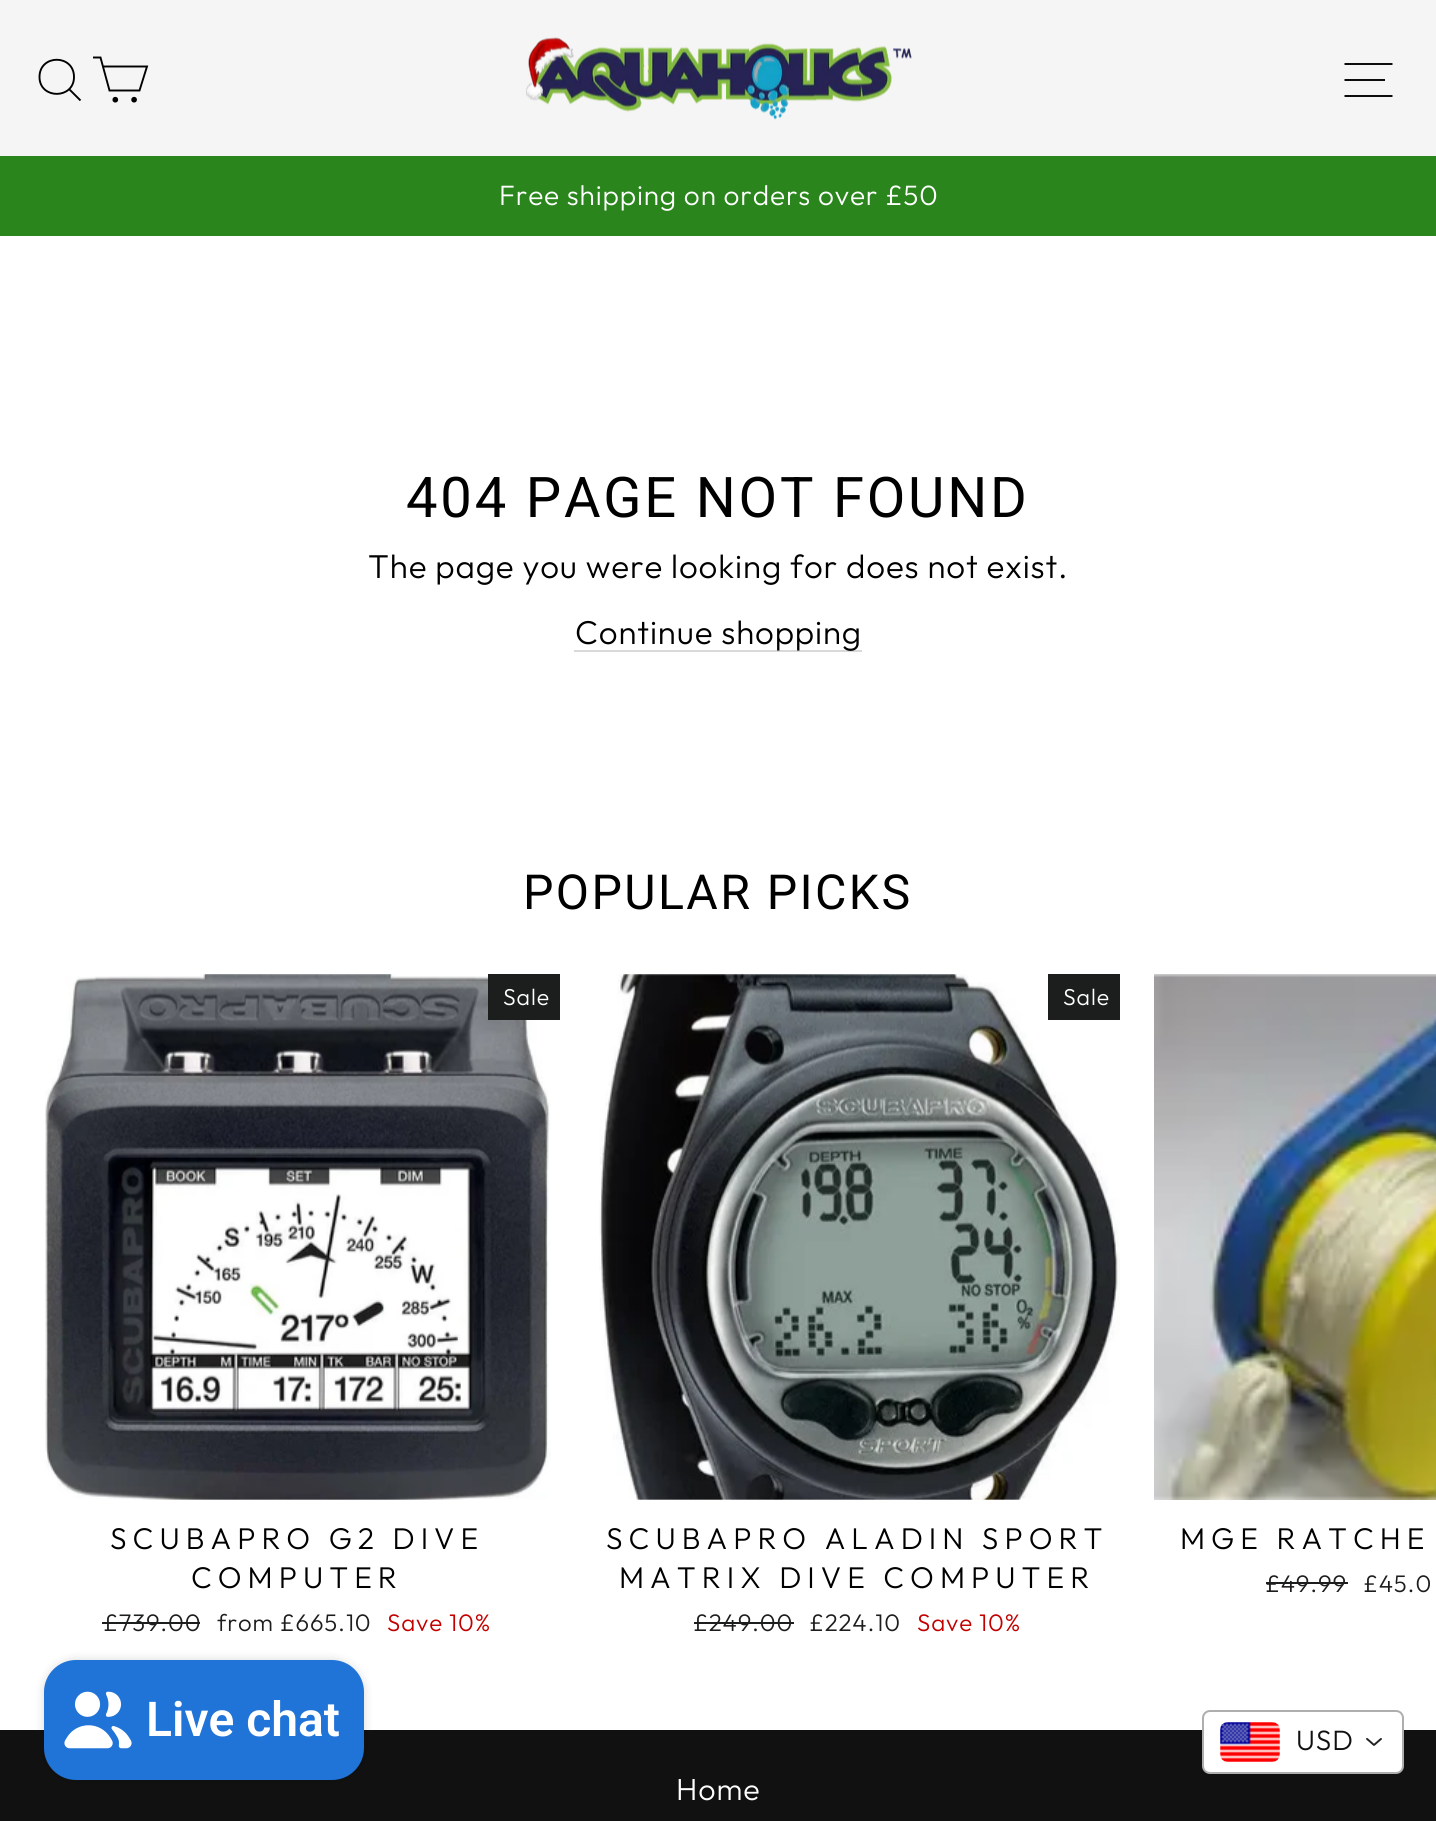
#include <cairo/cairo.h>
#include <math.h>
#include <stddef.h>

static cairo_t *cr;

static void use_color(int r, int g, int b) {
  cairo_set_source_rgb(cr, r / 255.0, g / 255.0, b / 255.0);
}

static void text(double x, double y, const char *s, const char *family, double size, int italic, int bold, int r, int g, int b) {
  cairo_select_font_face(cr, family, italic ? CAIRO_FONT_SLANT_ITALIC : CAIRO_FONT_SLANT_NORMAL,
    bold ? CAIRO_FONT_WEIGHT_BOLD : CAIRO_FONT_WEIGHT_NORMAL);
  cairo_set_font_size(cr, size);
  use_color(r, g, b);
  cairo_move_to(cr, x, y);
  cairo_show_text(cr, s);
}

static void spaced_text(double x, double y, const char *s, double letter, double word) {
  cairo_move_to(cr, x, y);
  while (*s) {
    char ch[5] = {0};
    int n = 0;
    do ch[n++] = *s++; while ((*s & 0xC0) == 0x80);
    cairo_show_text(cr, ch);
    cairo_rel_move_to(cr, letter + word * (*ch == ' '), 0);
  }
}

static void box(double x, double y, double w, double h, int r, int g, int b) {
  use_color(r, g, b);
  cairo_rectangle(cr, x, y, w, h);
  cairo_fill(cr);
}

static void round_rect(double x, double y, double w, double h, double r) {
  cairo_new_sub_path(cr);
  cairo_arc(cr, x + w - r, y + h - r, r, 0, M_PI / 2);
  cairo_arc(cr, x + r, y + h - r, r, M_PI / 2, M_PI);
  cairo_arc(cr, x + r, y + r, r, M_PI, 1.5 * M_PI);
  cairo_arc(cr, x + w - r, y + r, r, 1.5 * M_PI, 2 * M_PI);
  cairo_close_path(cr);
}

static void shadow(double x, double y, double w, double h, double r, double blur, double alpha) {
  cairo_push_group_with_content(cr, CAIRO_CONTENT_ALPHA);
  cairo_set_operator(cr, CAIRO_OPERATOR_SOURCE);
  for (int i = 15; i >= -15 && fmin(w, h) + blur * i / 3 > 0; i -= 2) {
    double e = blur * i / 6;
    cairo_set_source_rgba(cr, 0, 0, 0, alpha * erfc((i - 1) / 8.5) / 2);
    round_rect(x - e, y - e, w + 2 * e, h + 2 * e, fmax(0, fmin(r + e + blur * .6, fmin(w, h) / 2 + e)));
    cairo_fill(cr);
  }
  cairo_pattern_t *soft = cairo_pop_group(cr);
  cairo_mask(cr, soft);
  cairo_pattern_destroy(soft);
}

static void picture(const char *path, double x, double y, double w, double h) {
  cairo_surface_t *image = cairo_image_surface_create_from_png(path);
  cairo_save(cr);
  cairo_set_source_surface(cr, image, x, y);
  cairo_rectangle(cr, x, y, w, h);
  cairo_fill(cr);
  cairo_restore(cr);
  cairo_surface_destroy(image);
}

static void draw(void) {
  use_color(255, 255, 255);
  cairo_paint(cr);
  box(0, 0, 1436, 156, 245, 245, 245);
  cairo_new_path(cr);
  cairo_move_to(cr, 74, 77);
  cairo_curve_to(cr, 74, 99.5, 39.5, 99.5, 39.5, 77);
  cairo_curve_to(cr, 39.5, 54, 74, 54, 74, 77);
  cairo_close_path(cr);
  cairo_move_to(cr, 80.5, 100.5);
  cairo_line_to(cr, 69.5, 89.5);
  use_color(0, 0, 0);
  cairo_set_line_width(cr, 1.9);
  cairo_stroke(cr);
  cairo_new_path(cr);
  cairo_move_to(cr, 103, 66.5);
  cairo_line_to(cr, 147, 66.5);
  cairo_line_to(cr, 139.5, 90.5);
  cairo_line_to(cr, 109.5, 90.5);
  cairo_line_to(cr, 100.5, 57.5);
  cairo_line_to(cr, 93, 57.5);
  cairo_stroke(cr);
  cairo_arc(cr, 115.3, 99.7, 1.9, 0, 2 * M_PI);
  cairo_fill_preserve(cr);
  cairo_stroke(cr);
  cairo_arc(cr, 134.1, 99.7, 1.9, 0, 2 * M_PI);
  cairo_fill_preserve(cr);
  cairo_stroke(cr);
  picture("img_01.png", 525, 37, 387, 83);
  cairo_new_path(cr);
  cairo_move_to(cr, 1344.5, 64);
  cairo_line_to(cr, 1392.5, 64);
  cairo_move_to(cr, 1344.5, 80);
  cairo_line_to(cr, 1385, 80);
  cairo_move_to(cr, 1344.5, 96);
  cairo_line_to(cr, 1392.5, 96);
  cairo_stroke(cr);
  box(0, 156, 1436, 80, 42, 134, 28);
  box(574, 650, 288, 2, 217, 217, 217);
  picture("img_02.png", 45, 974, 506, 526);
  box(488, 974, 72, 46, 28, 29, 29);
  box(102, 1622, 98, 2, 28, 29, 29);
  picture("img_03.png", 599, 974, 521, 526);
  box(1048, 974, 72, 46, 28, 29, 29);
  box(694, 1622, 100, 2, 28, 29, 29);
  picture("img_04.png", 1154, 974, 282, 526);
  box(1266, 1582, 82, 2, 28, 29, 29);
  box(0, 1730, 1436, 91, 17, 17, 17);
  use_color(0, 0, 0);
  shadow(44, 1660, 320, 120, 32, 5, 0.15);
  use_color(32, 115, 215);
  round_rect(44, 1660, 320, 120, 32);
  cairo_fill(cr);
  picture("img_05.png", 64, 1691, 68, 58);
  use_color(255, 255, 255);
  round_rect(1203, 1711, 200, 62, 7);
  cairo_fill_preserve(cr);
  use_color(174, 174, 174);
  cairo_set_line_width(cr, 2);
  cairo_stroke(cr);
  picture("img_06.png", 1220, 1722, 60, 40);
  picture("img_07.png", 1366, 1738, 16, 8);
  cairo_select_font_face(cr, "Outfit Light", CAIRO_FONT_SLANT_NORMAL, CAIRO_FONT_WEIGHT_NORMAL);
  cairo_set_font_size(cr, 28);
  use_color(255, 255, 255);
  spaced_text(499, 205, "Free shipping on orders over £50", 0.85, 0);
  cairo_select_font_face(cr, "Roboto", CAIRO_FONT_SLANT_NORMAL, CAIRO_FONT_WEIGHT_NORMAL);
  cairo_set_font_size(cr, 56.1);
  use_color(0, 0, 0);
  spaced_text(406, 517, "404 PAGE NOT FOUND", 2.8, 0);
  cairo_select_font_face(cr, "Outfit Light", CAIRO_FONT_SLANT_NORMAL, CAIRO_FONT_WEIGHT_NORMAL);
  cairo_set_font_size(cr, 33.1);
  spaced_text(368, 578, "The page you were looking for does not exist.", 0.85, 0);
  spaced_text(575, 644, "Continue shopping", 0.85, 0);
  cairo_select_font_face(cr, "Roboto", CAIRO_FONT_SLANT_NORMAL, CAIRO_FONT_WEIGHT_NORMAL);
  cairo_set_font_size(cr, 48.25);
  spaced_text(523, 909, "POPULAR PICKS", 2.4, 0);
  cairo_select_font_face(cr, "Outfit Light", CAIRO_FONT_SLANT_NORMAL, CAIRO_FONT_WEIGHT_NORMAL);
  cairo_set_font_size(cr, 23);
  use_color(255, 255, 255);
  spaced_text(503, 1005, "Sale", 0.85, 0);
  cairo_set_font_size(cr, 30);
  use_color(0, 0, 0);
  spaced_text(110, 1549, "SCUBAPRO G2 DIVE", 6, 0);
  spaced_text(191, 1588, "COMPUTER", 6, 0);
  cairo_set_font_size(cr, 24);
  use_color(28, 29, 29);
  spaced_text(103, 1631, "£739.00", 0.85, 0);
  spaced_text(217, 1631, "from £665.10", 0.85, 0);
  use_color(194, 0, 0);
  spaced_text(387, 1631, "Save 10%", 0.85, 0);
  cairo_set_font_size(cr, 23);
  use_color(255, 255, 255);
  spaced_text(1063, 1005, "Sale", 0.85, 0);
  cairo_set_font_size(cr, 30);
  use_color(0, 0, 0);
  spaced_text(606, 1549, "SCUBAPRO ALADIN SPORT", 6, 0);
  spaced_text(619, 1588, "MATRIX DIVE COMPUTER", 6, 0);
  cairo_set_font_size(cr, 24);
  use_color(28, 29, 29);
  spaced_text(693, 1631, "£249.00", 0.85, 0);
  spaced_text(809, 1631, "£224.10", 0.85, 0);
  use_color(194, 0, 0);
  spaced_text(917, 1631, "Save 10%", 0.85, 0);
  cairo_set_font_size(cr, 30);
  use_color(0, 0, 0);
  spaced_text(1180, 1549, "MGE RATCHE", 6, 0);
  cairo_set_font_size(cr, 24);
  use_color(28, 29, 29);
  spaced_text(1265, 1592, "£49.99", 0.85, 0);
  spaced_text(1363, 1592, "£45.0", 0.85, 0);
  cairo_set_font_size(cr, 30.5);
  use_color(255, 255, 255);
  spaced_text(676, 1800, "Home", 0.85, 0);
  text(146, 1736, "Live chat", "Roboto SemiBold", 48, 0, 0, 255, 255, 255);
  cairo_select_font_face(cr, "Outfit Light", CAIRO_FONT_SLANT_NORMAL, CAIRO_FONT_WEIGHT_NORMAL);
  cairo_set_font_size(cr, 28);
  use_color(17, 17, 17);
  spaced_text(1296, 1750, "USD", 0.85, 0);
}

int main(void) {
  cairo_surface_t *surface = cairo_image_surface_create(CAIRO_FORMAT_RGB24, 1436, 1821);
  cr = cairo_create(surface);
  cairo_font_options_t *options = cairo_font_options_create();
  cairo_font_options_set_hint_metrics(options, CAIRO_HINT_METRICS_OFF);
  cairo_font_options_set_hint_style(options, CAIRO_HINT_STYLE_NONE);
  cairo_set_font_options(cr, options);
  cairo_set_miter_limit(cr, 4);
  draw();
  cairo_surface_write_to_png(surface, "out.png");
  cairo_font_options_destroy(options);
  cairo_destroy(cr);
  cairo_surface_destroy(surface);
  return 0;
}
